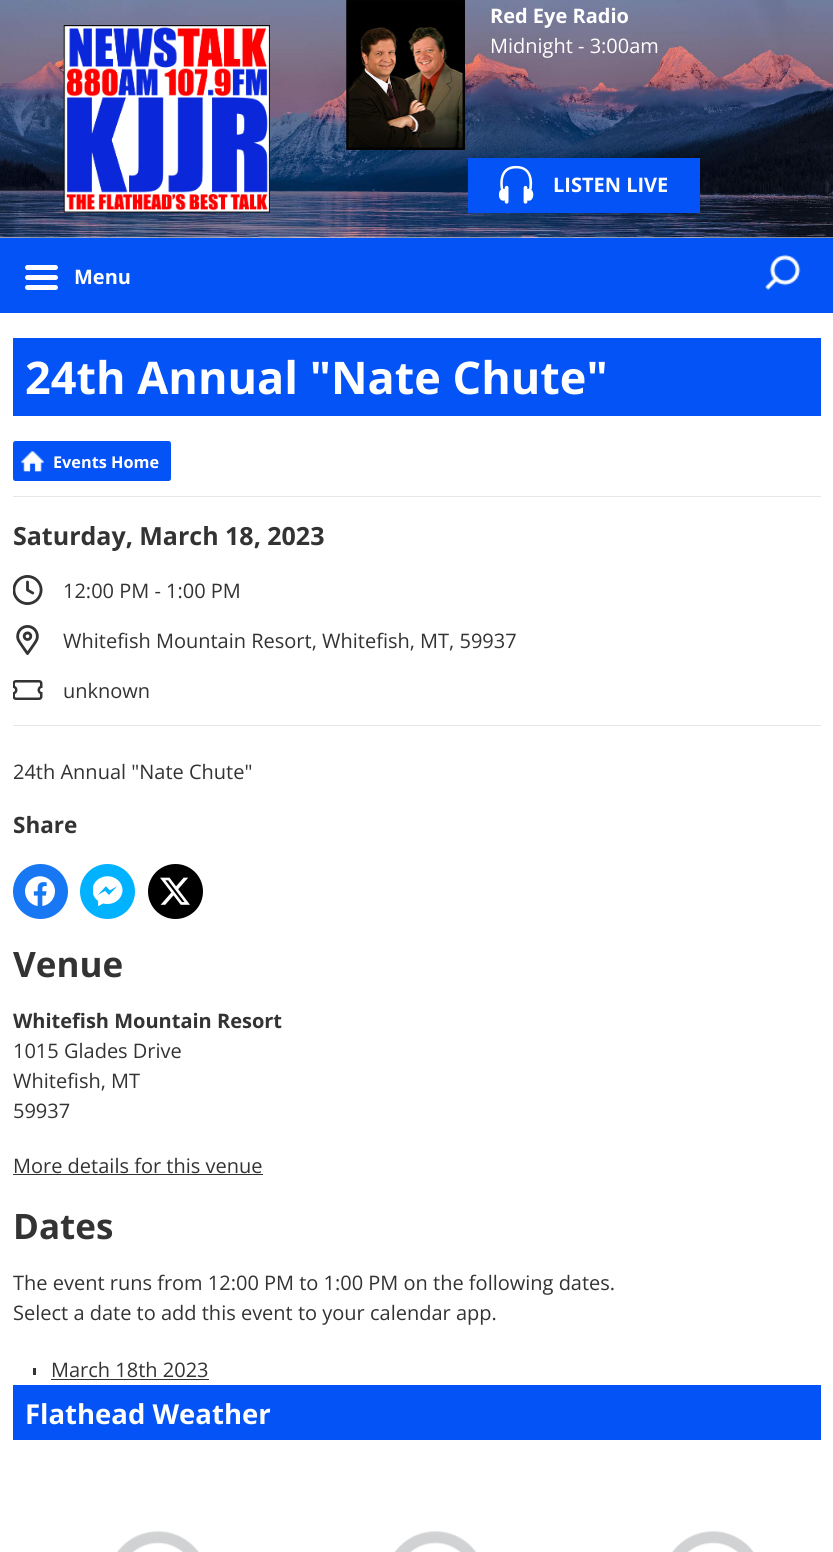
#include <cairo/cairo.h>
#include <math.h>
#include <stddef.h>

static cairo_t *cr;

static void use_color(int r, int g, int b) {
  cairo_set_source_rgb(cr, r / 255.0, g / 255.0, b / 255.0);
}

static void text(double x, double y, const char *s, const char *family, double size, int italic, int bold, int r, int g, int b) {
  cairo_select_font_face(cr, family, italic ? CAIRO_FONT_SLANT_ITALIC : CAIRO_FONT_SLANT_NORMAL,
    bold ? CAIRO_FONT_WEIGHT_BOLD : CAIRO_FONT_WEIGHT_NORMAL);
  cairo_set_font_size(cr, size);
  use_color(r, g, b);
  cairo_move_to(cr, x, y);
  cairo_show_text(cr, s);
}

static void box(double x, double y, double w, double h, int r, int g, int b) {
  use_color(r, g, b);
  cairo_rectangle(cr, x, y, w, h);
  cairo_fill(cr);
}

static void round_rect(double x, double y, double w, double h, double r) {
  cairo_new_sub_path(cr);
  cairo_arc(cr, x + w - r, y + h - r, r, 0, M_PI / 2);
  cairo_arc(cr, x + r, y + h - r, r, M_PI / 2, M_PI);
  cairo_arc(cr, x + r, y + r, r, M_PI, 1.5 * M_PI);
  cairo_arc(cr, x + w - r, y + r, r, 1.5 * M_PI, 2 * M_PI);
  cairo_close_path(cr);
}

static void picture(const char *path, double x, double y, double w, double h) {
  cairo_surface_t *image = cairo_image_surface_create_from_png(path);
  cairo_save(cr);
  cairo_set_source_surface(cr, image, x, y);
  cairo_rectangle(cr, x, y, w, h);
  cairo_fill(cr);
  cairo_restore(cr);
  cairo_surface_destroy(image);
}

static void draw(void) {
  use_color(255, 255, 255);
  cairo_paint(cr);
  picture("img_01.png", 0, 0, 833, 238);
  picture("img_02.png", 63, 25, 207, 188);
  picture("img_03.png", 346, 0, 119, 150);
  box(468, 158, 232, 55, 4, 83, 246);
  picture("img_04.png", 499, 165, 35, 39);
  box(0, 238, 833, 75, 4, 83, 246);
  use_color(255, 255, 255);
  round_rect(25, 265, 33, 5, 2.5);
  cairo_fill(cr);
  round_rect(25, 275, 33, 5, 2.5);
  cairo_fill(cr);
  round_rect(25, 285, 33, 5, 2.5);
  cairo_fill(cr);
  picture("img_05.png", 765, 254, 36, 37);
  box(13, 338, 808, 78, 4, 83, 246);
  round_rect(13, 441, 158, 40, 2.5);
  cairo_fill(cr);
  picture("img_06.png", 21, 451, 23, 21);
  box(13, 496, 808, 1, 230, 230, 230);
  box(13, 725, 808, 1, 230, 230, 230);
  picture("img_07.png", 13, 575, 30, 30);
  picture("img_08.png", 16, 625, 23, 30);
  picture("img_09.png", 13, 680, 30, 20);
  use_color(24, 119, 242);
  cairo_arc(cr, 40.5, 891.5, 27.5, 0, 2 * M_PI);
  cairo_fill(cr);
  picture("img_10.png", 25, 876, 30, 30);
  use_color(0, 178, 255);
  cairo_arc(cr, 107.5, 891.5, 27.5, 0, 2 * M_PI);
  cairo_fill(cr);
  picture("img_11.png", 93, 876, 30, 30);
  use_color(0, 0, 0);
  cairo_arc(cr, 175.5, 891.5, 27.5, 0, 2 * M_PI);
  cairo_fill(cr);
  picture("img_12.png", 160, 877, 30, 28);
  box(13, 1174, 250, 1, 51, 51, 51);
  box(33, 1368, 3, 7, 51, 51, 51);
  box(51, 1379, 158, 1, 51, 51, 51);
  box(13, 1385, 808, 55, 4, 83, 246);
  picture("img_13.png", 117, 1531, 82, 21);
  picture("img_14.png", 394, 1531, 83, 21);
  picture("img_13.png", 672, 1531, 82, 21);
  text(490, 23, "Red Eye Radio", "Open Sans", 20, 0, 1, 255, 255, 255);
  text(490, 53, "Midnight - 3:00am", "Open Sans", 20, 0, 0, 255, 255, 255);
  text(553, 192, "LISTEN LIVE", "Open Sans", 20, 0, 1, 255, 255, 255);
  text(74, 284, "Menu", "Open Sans", 20, 0, 1, 255, 255, 255);
  text(25, 394, "24th Annual \"Nate Chute\"", "Open Sans", 45, 0, 1, 255, 255, 255);
  text(53, 468, "Events Home", "Open Sans", 16.25, 0, 1, 255, 255, 255);
  text(13, 545, "Saturday, March 18, 2023", "Open Sans", 25, 0, 1, 51, 51, 51);
  text(63, 598, "12:00 PM - 1:00 PM", "Open Sans", 20, 0, 0, 51, 51, 51);
  text(63, 648, "Whitefish Mountain Resort, Whitefish, MT, 59937", "Open Sans", 20, 0, 0, 51, 51, 51);
  text(63, 698, "unknown", "Open Sans", 20, 0, 0, 51, 51, 51);
  text(13, 779, "24th Annual \"Nate Chute\"", "Open Sans", 20, 0, 0, 51, 51, 51);
  text(13, 833, "Share", "Open Sans", 22.5, 0, 1, 51, 51, 51);
  text(13, 977, "Venue", "Open Sans", 35, 0, 1, 51, 51, 51);
  text(13, 1028, "Whitefish Mountain Resort", "Open Sans", 20, 0, 1, 51, 51, 51);
  text(13, 1058, "1015 Glades Drive", "Open Sans", 20, 0, 0, 51, 51, 51);
  text(13, 1088, "Whitefish, MT", "Open Sans", 20, 0, 0, 51, 51, 51);
  text(13, 1118, "59937", "Open Sans", 20, 0, 0, 51, 51, 51);
  text(13, 1173, "More details for this venue", "Open Sans", 20, 0, 0, 51, 51, 51);
  text(13, 1239, "Dates", "Open Sans", 35, 0, 1, 51, 51, 51);
  text(13, 1290, "The event runs from 12:00 PM to 1:00 PM on the following dates.", "Open Sans", 20, 0, 0, 51, 51, 51);
  text(13, 1320, "Select a date to add this event to your calendar app.", "Open Sans", 20, 0, 0, 51, 51, 51);
  text(51, 1377, "March 18th 2023", "Open Sans", 20, 0, 0, 51, 51, 51);
  text(25, 1424, "Flathead Weather", "Open Sans", 27.5, 0, 1, 255, 255, 255);
}

int main(void) {
  cairo_surface_t *surface = cairo_image_surface_create(CAIRO_FORMAT_RGB24, 833, 1552);
  cr = cairo_create(surface);
  cairo_font_options_t *options = cairo_font_options_create();
  cairo_font_options_set_hint_metrics(options, CAIRO_HINT_METRICS_OFF);
  cairo_font_options_set_hint_style(options, CAIRO_HINT_STYLE_NONE);
  cairo_set_font_options(cr, options);
  cairo_set_miter_limit(cr, 4);
  draw();
  cairo_surface_write_to_png(surface, "out.png");
  cairo_font_options_destroy(options);
  cairo_destroy(cr);
  cairo_surface_destroy(surface);
  return 0;
}
